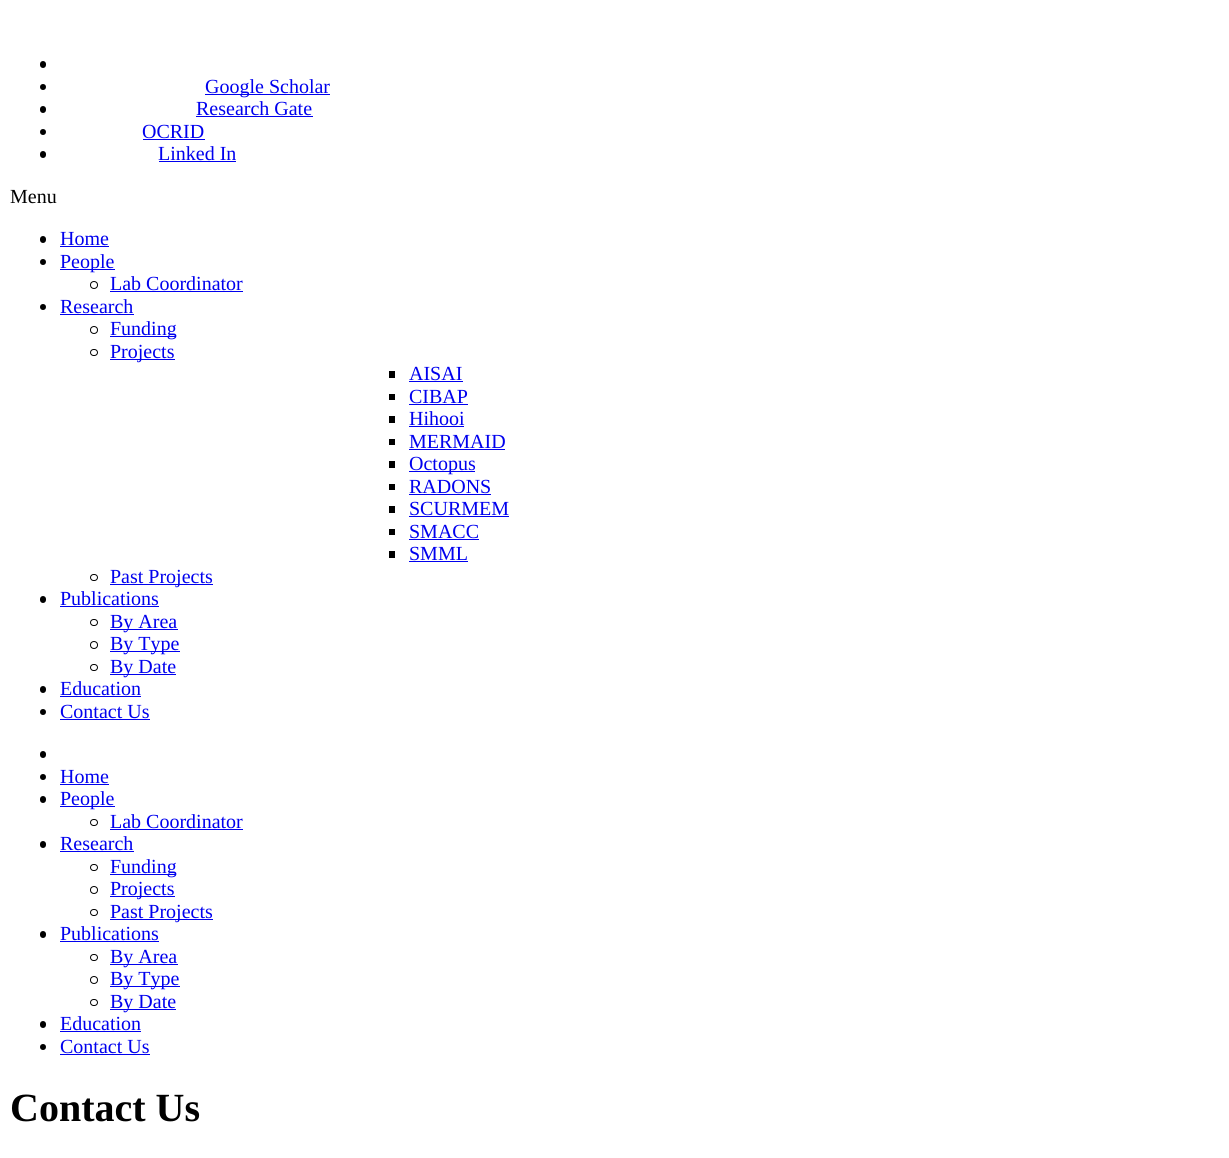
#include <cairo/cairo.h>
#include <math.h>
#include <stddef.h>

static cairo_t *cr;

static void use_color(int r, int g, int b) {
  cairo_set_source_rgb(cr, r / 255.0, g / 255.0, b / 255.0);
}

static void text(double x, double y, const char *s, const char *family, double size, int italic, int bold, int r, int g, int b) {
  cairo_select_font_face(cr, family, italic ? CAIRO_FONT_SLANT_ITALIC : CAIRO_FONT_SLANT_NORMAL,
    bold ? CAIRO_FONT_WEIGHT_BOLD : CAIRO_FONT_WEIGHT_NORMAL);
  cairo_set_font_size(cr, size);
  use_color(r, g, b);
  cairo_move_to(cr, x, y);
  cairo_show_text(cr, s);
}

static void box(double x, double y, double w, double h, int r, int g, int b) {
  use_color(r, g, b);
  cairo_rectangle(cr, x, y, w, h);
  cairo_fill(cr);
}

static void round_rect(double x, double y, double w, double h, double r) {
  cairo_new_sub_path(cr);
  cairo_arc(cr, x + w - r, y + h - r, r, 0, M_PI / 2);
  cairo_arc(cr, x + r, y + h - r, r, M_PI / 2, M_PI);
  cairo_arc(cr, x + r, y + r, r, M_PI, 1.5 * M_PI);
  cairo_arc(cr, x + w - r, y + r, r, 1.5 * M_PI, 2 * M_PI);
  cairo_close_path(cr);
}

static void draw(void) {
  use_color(255, 255, 255);
  cairo_paint(cr);
  use_color(0, 0, 0);
  round_rect(40, 61, 6, 7, 3);
  cairo_fill(cr);
  cairo_arc(cr, 43, 87, 3, 0, 2 * M_PI);
  cairo_fill(cr);
  box(205, 94, 125, 1, 0, 0, 238);
  use_color(0, 0, 0);
  round_rect(40, 106, 6, 7, 3);
  cairo_fill(cr);
  box(196, 116, 117, 1, 0, 0, 238);
  use_color(0, 0, 0);
  cairo_arc(cr, 43, 132, 3, 0, 2 * M_PI);
  cairo_fill(cr);
  box(143, 139, 62, 1, 0, 0, 238);
  use_color(0, 0, 0);
  round_rect(40, 151, 6, 7, 3);
  cairo_fill(cr);
  box(159, 161, 77, 1, 0, 0, 238);
  use_color(0, 0, 0);
  round_rect(40, 236, 6, 7, 3);
  cairo_fill(cr);
  box(60, 246, 49, 1, 0, 0, 238);
  use_color(0, 0, 0);
  cairo_arc(cr, 43, 262, 3, 0, 2 * M_PI);
  cairo_fill(cr);
  box(60, 269, 55, 1, 0, 0, 238);
  cairo_arc(cr, 94, 285, 3.5, 0, 2 * M_PI);
  use_color(0, 0, 0);
  cairo_set_line_width(cr, 1);
  cairo_stroke(cr);
  box(110, 291, 133, 1, 0, 0, 238);
  use_color(0, 0, 0);
  cairo_arc(cr, 43, 307, 3, 0, 2 * M_PI);
  cairo_fill(cr);
  box(60, 314, 74, 1, 0, 0, 238);
  cairo_arc(cr, 94, 330, 3.5, 0, 2 * M_PI);
  use_color(0, 0, 0);
  cairo_stroke(cr);
  box(110, 336, 66, 1, 0, 0, 238);
  round_rect(90.5, 349.5, 7, 6, 3);
  use_color(0, 0, 0);
  cairo_stroke(cr);
  box(110, 359, 65, 1, 0, 0, 238);
  box(389, 371, 6, 7, 0, 0, 0);
  box(409, 381, 54, 1, 0, 0, 238);
  box(389, 394, 6, 6, 0, 0, 0);
  box(409, 404, 59, 1, 0, 0, 238);
  box(389, 416, 6, 7, 0, 0, 0);
  box(409, 426, 55, 1, 0, 0, 238);
  box(389, 439, 6, 6, 0, 0, 0);
  box(409, 449, 96, 1, 0, 0, 238);
  box(389, 461, 6, 7, 0, 0, 0);
  box(409, 471, 66, 1, 0, 0, 238);
  box(389, 484, 6, 6, 0, 0, 0);
  box(409, 494, 82, 1, 0, 0, 238);
  box(389, 506, 6, 7, 0, 0, 0);
  box(409, 516, 100, 1, 0, 0, 238);
  box(389, 529, 6, 6, 0, 0, 0);
  box(409, 539, 70, 1, 0, 0, 238);
  box(389, 551, 6, 7, 0, 0, 0);
  box(409, 561, 59, 1, 0, 0, 238);
  round_rect(90.5, 574.5, 7, 6, 3);
  use_color(0, 0, 0);
  cairo_stroke(cr);
  box(110, 584, 103, 1, 0, 0, 238);
  use_color(0, 0, 0);
  round_rect(40, 596, 6, 7, 3);
  cairo_fill(cr);
  box(60, 606, 99, 1, 0, 0, 238);
  round_rect(90.5, 619.5, 7, 6, 3);
  use_color(0, 0, 0);
  cairo_stroke(cr);
  box(110, 629, 68, 1, 0, 0, 238);
  cairo_arc(cr, 94, 645, 3.5, 0, 2 * M_PI);
  use_color(0, 0, 0);
  cairo_stroke(cr);
  box(110, 651, 70, 1, 0, 0, 238);
  round_rect(90.5, 664.5, 7, 6, 3);
  use_color(0, 0, 0);
  cairo_stroke(cr);
  box(110, 674, 66, 1, 0, 0, 238);
  use_color(0, 0, 0);
  round_rect(40, 686, 6, 7, 3);
  cairo_fill(cr);
  box(60, 696, 81, 1, 0, 0, 238);
  use_color(0, 0, 0);
  cairo_arc(cr, 43, 712, 3, 0, 2 * M_PI);
  cairo_fill(cr);
  box(60, 719, 90, 1, 0, 0, 238);
  use_color(0, 0, 0);
  round_rect(40, 751, 6, 7, 3);
  cairo_fill(cr);
  cairo_arc(cr, 43, 777, 3, 0, 2 * M_PI);
  cairo_fill(cr);
  box(60, 784, 49, 1, 0, 0, 238);
  use_color(0, 0, 0);
  round_rect(40, 796, 6, 7, 3);
  cairo_fill(cr);
  box(60, 806, 55, 1, 0, 0, 238);
  round_rect(90.5, 819.5, 7, 6, 3);
  use_color(0, 0, 0);
  cairo_stroke(cr);
  box(110, 829, 133, 1, 0, 0, 238);
  use_color(0, 0, 0);
  round_rect(40, 841, 6, 7, 3);
  cairo_fill(cr);
  box(60, 851, 74, 1, 0, 0, 238);
  round_rect(90.5, 864.5, 7, 6, 3);
  use_color(0, 0, 0);
  cairo_stroke(cr);
  box(110, 874, 66, 1, 0, 0, 238);
  cairo_arc(cr, 94, 890, 3.5, 0, 2 * M_PI);
  use_color(0, 0, 0);
  cairo_stroke(cr);
  box(110, 896, 65, 1, 0, 0, 238);
  round_rect(90.5, 909.5, 7, 6, 3);
  use_color(0, 0, 0);
  cairo_stroke(cr);
  box(110, 919, 103, 1, 0, 0, 238);
  use_color(0, 0, 0);
  round_rect(40, 931, 6, 7, 3);
  cairo_fill(cr);
  box(60, 941, 99, 1, 0, 0, 238);
  round_rect(90.5, 954.5, 7, 6, 3);
  use_color(0, 0, 0);
  cairo_stroke(cr);
  box(110, 964, 68, 1, 0, 0, 238);
  cairo_arc(cr, 94, 980, 3.5, 0, 2 * M_PI);
  use_color(0, 0, 0);
  cairo_stroke(cr);
  box(110, 986, 70, 1, 0, 0, 238);
  round_rect(90.5, 999.5, 7, 6, 3);
  use_color(0, 0, 0);
  cairo_stroke(cr);
  box(110, 1009, 66, 1, 0, 0, 238);
  use_color(0, 0, 0);
  round_rect(40, 1021, 6, 7, 3);
  cairo_fill(cr);
  box(60, 1031, 81, 1, 0, 0, 238);
  use_color(0, 0, 0);
  cairo_arc(cr, 43, 1047, 3, 0, 2 * M_PI);
  cairo_fill(cr);
  box(60, 1054, 90, 1, 0, 0, 238);
  text(205, 93, "Google Scholar", "Liberation Serif", 20, 0, 0, 0, 0, 238);
  text(196, 115, "Research Gate", "Liberation Serif", 20, 0, 0, 0, 0, 238);
  text(142, 138, "OCRID", "Liberation Serif", 20, 0, 0, 0, 0, 238);
  text(158, 160, "Linked In", "Liberation Serif", 20, 0, 0, 0, 0, 238);
  text(10, 203, "Menu", "Liberation Serif", 20, 0, 0, 0, 0, 0);
  text(60, 245, "Home", "Liberation Serif", 20, 0, 0, 0, 0, 238);
  text(60, 268, "People", "Liberation Serif", 20, 0, 0, 0, 0, 238);
  text(110, 290, "Lab Coordinator", "Liberation Serif", 20, 0, 0, 0, 0, 238);
  text(60, 313, "Research", "Liberation Serif", 20, 0, 0, 0, 0, 238);
  text(110, 335, "Funding", "Liberation Serif", 20, 0, 0, 0, 0, 238);
  text(110, 358, "Projects", "Liberation Serif", 20, 0, 0, 0, 0, 238);
  text(409, 380, "AISAI", "Liberation Serif", 20, 0, 0, 0, 0, 238);
  text(409, 403, "CIBAP", "Liberation Serif", 20, 0, 0, 0, 0, 238);
  text(409, 425, "Hihooi", "Liberation Serif", 20, 0, 0, 0, 0, 238);
  text(409, 448, "MERMAID", "Liberation Serif", 20, 0, 0, 0, 0, 238);
  text(409, 470, "Octopus", "Liberation Serif", 20, 0, 0, 0, 0, 238);
  text(409, 493, "RADONS", "Liberation Serif", 20, 0, 0, 0, 0, 238);
  text(409, 515, "SCURMEM", "Liberation Serif", 20, 0, 0, 0, 0, 238);
  text(409, 538, "SMACC", "Liberation Serif", 20, 0, 0, 0, 0, 238);
  text(409, 560, "SMML", "Liberation Serif", 20, 0, 0, 0, 0, 238);
  text(110, 583, "Past Projects", "Liberation Serif", 20, 0, 0, 0, 0, 238);
  text(60, 605, "Publications", "Liberation Serif", 20, 0, 0, 0, 0, 238);
  text(110, 628, "By Area", "Liberation Serif", 20, 0, 0, 0, 0, 238);
  text(110, 650, "By Type", "Liberation Serif", 20, 0, 0, 0, 0, 238);
  text(110, 673, "By Date", "Liberation Serif", 20, 0, 0, 0, 0, 238);
  text(60, 695, "Education", "Liberation Serif", 20, 0, 0, 0, 0, 238);
  text(60, 718, "Contact Us", "Liberation Serif", 20, 0, 0, 0, 0, 238);
  text(60, 783, "Home", "Liberation Serif", 20, 0, 0, 0, 0, 238);
  text(60, 805, "People", "Liberation Serif", 20, 0, 0, 0, 0, 238);
  text(110, 828, "Lab Coordinator", "Liberation Serif", 20, 0, 0, 0, 0, 238);
  text(60, 850, "Research", "Liberation Serif", 20, 0, 0, 0, 0, 238);
  text(110, 873, "Funding", "Liberation Serif", 20, 0, 0, 0, 0, 238);
  text(110, 895, "Projects", "Liberation Serif", 20, 0, 0, 0, 0, 238);
  text(110, 918, "Past Projects", "Liberation Serif", 20, 0, 0, 0, 0, 238);
  text(60, 940, "Publications", "Liberation Serif", 20, 0, 0, 0, 0, 238);
  text(110, 963, "By Area", "Liberation Serif", 20, 0, 0, 0, 0, 238);
  text(110, 985, "By Type", "Liberation Serif", 20, 0, 0, 0, 0, 238);
  text(110, 1008, "By Date", "Liberation Serif", 20, 0, 0, 0, 0, 238);
  text(60, 1030, "Education", "Liberation Serif", 20, 0, 0, 0, 0, 238);
  text(60, 1053, "Contact Us", "Liberation Serif", 20, 0, 0, 0, 0, 238);
  text(10, 1121, "Contact Us", "Liberation Serif", 40, 0, 1, 0, 0, 0);
}

int main(void) {
  cairo_surface_t *surface = cairo_image_surface_create(CAIRO_FORMAT_RGB24, 1229, 1158);
  cr = cairo_create(surface);
  cairo_font_options_t *options = cairo_font_options_create();
  cairo_font_options_set_hint_metrics(options, CAIRO_HINT_METRICS_OFF);
  cairo_font_options_set_hint_style(options, CAIRO_HINT_STYLE_NONE);
  cairo_set_font_options(cr, options);
  cairo_set_miter_limit(cr, 4);
  draw();
  cairo_surface_write_to_png(surface, "out.png");
  cairo_font_options_destroy(options);
  cairo_destroy(cr);
  cairo_surface_destroy(surface);
  return 0;
}
